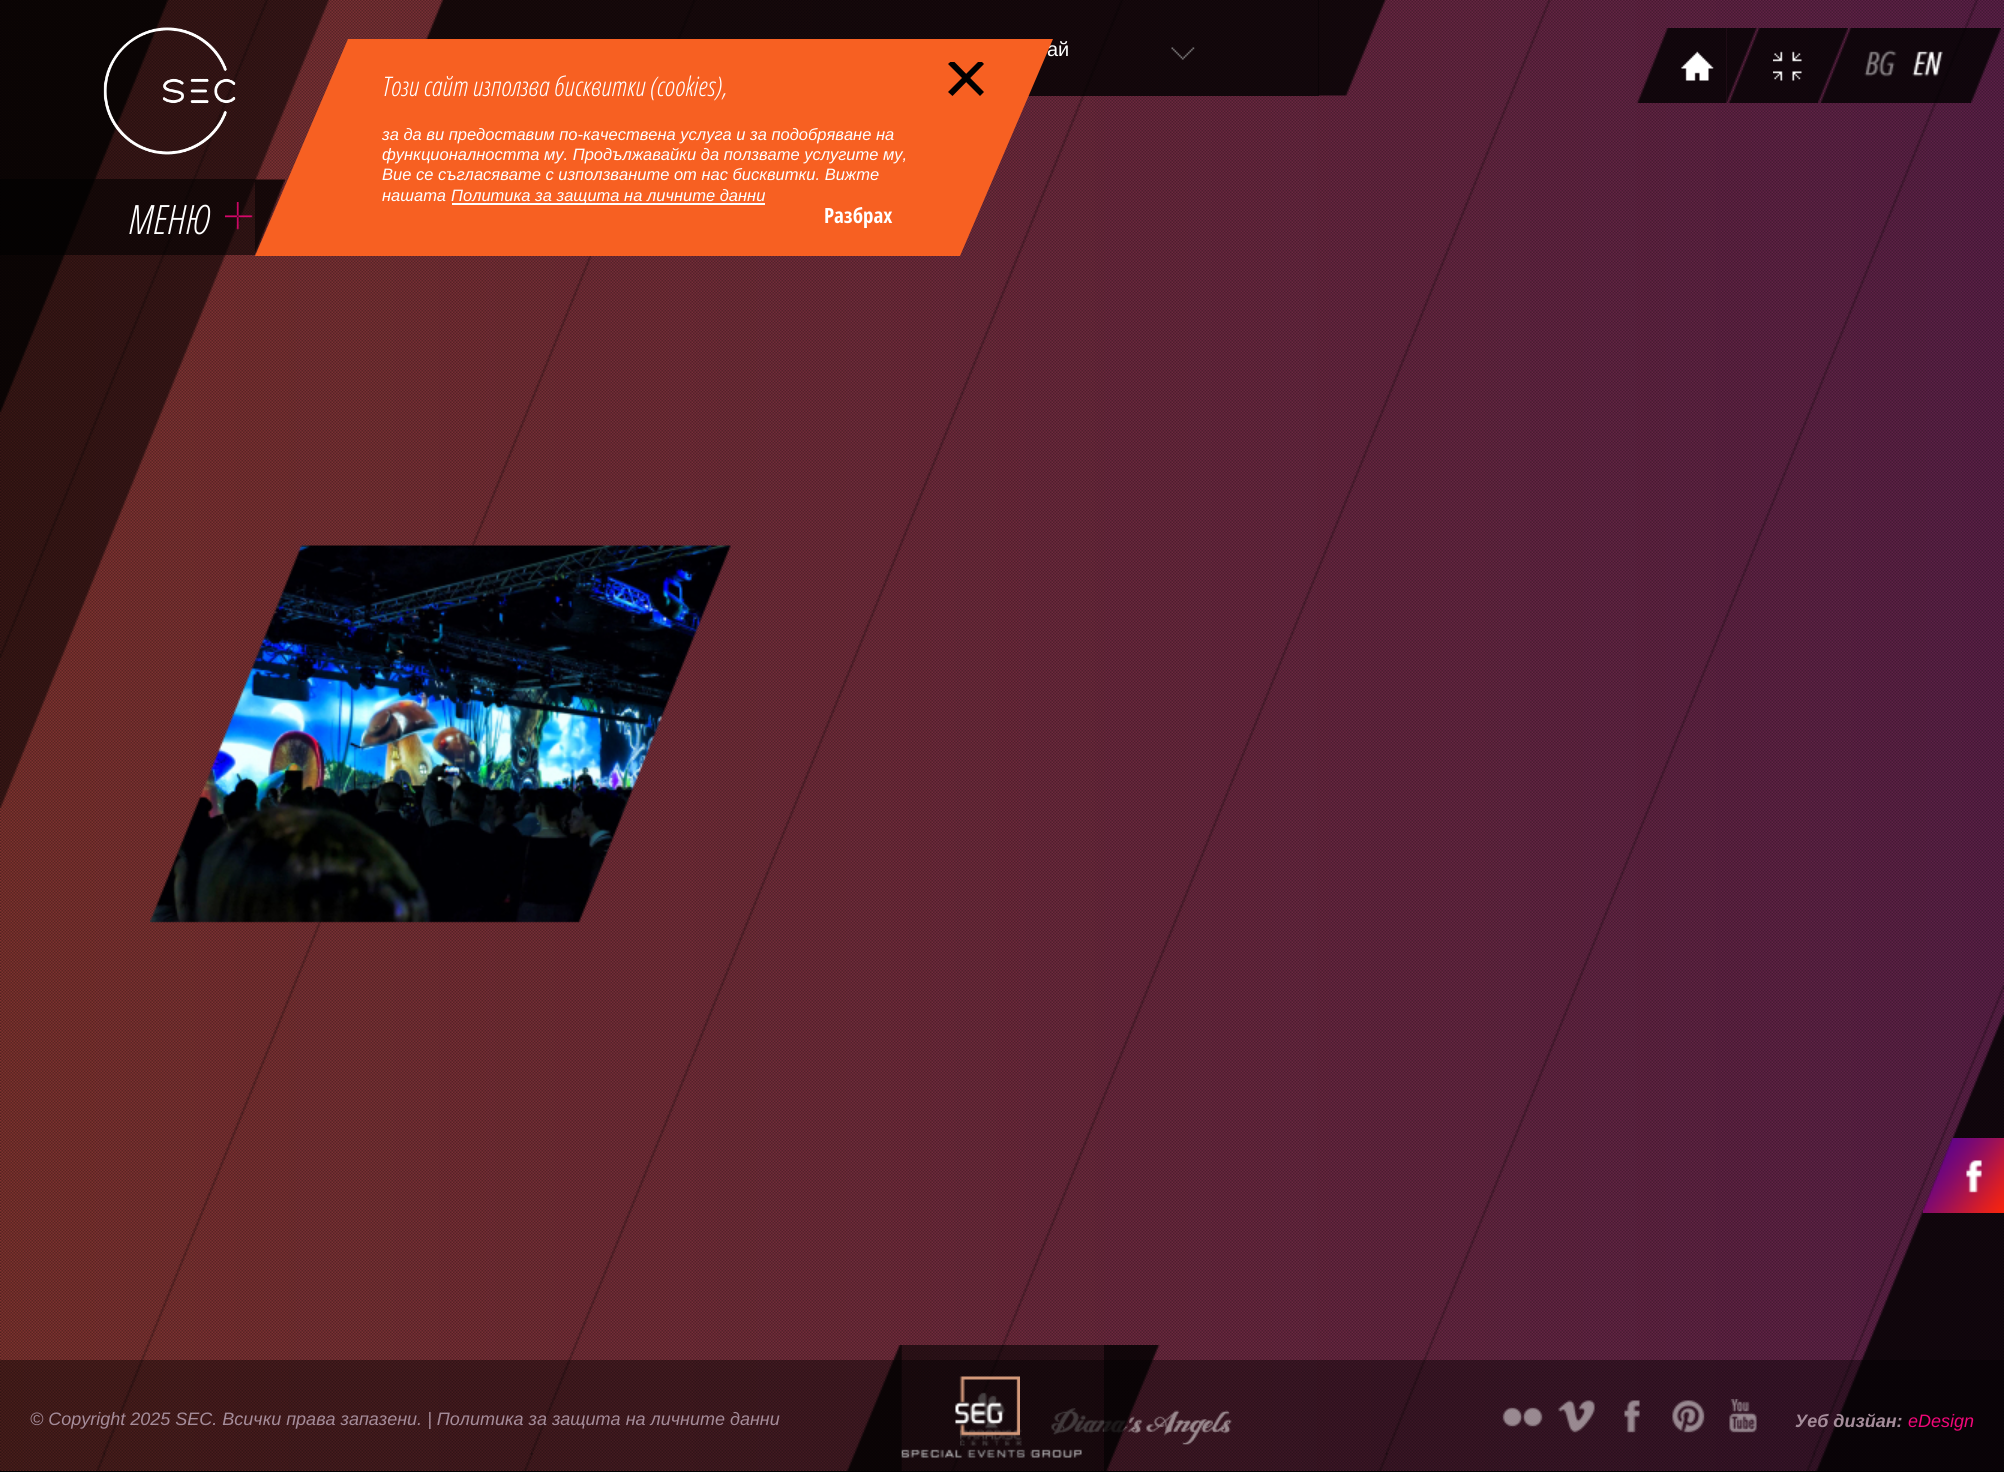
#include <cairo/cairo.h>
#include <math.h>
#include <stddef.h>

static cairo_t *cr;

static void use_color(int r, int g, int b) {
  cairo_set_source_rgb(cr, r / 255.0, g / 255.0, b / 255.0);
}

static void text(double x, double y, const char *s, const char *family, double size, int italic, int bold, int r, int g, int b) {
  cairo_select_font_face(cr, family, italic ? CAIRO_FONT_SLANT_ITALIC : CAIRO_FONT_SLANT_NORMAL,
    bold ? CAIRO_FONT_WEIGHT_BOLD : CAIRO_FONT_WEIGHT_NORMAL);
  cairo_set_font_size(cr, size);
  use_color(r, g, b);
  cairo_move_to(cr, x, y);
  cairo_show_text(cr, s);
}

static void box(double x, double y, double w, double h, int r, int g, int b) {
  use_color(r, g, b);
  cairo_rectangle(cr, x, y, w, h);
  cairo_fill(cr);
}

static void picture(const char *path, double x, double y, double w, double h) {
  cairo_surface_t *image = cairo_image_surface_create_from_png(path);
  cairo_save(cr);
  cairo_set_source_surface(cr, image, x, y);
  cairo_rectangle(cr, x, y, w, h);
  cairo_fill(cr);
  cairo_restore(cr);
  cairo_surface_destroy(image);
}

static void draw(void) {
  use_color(0, 0, 0);
  cairo_paint(cr);
  picture("img_01.png", 0, 0, 2004, 1471);
  picture("img_03.png", 150, 545, 581, 378);
  picture("img_02.png", 0, 0, 330, 809);
  picture("img_04.png", 1816, 1013, 188, 458);
  picture("img_05.png", 1923, 1138, 81, 75);
  cairo_set_source_rgba(cr, 0, 0, 0, 0.8);
  cairo_rectangle(cr, 471, 0, 848, 96);
  cairo_fill(cr);
  picture("img_06.png", 425, 0, 46, 39);
  picture("img_07.png", 1171, 47, 24, 13);
  picture("img_08.png", 1318, 0, 68, 96);
  picture("img_09.png", 1636, 28, 91, 75);
  picture("img_10.png", 1681, 51, 33, 30);
  picture("img_11.png", 1726, 28, 31, 75);
  picture("img_12.png", 1728, 28, 90, 75);
  picture("img_13.png", 1773, 51, 29, 30);
  picture("img_14.png", 1818, 28, 30, 75);
  picture("img_15.png", 1819, 28, 152, 75);
  picture("img_16.png", 1864, 50, 33, 27);
  picture("img_17.png", 1912, 51, 31, 26);
  picture("img_18.png", 1971, 28, 30, 75);
  picture("img_19.png", 103, 27, 133, 128);
  cairo_set_source_rgba(cr, 0, 0, 0, 0.58);
  cairo_rectangle(cr, 0, 179, 255, 76);
  cairo_fill(cr);
  picture("img_20.png", 225, 202, 28, 28);
  picture("img_21.png", 255, 179, 30, 76);
  cairo_set_source_rgba(cr, 0, 0, 0, 0.42);
  cairo_rectangle(cr, 0, 1360, 2004, 111);
  cairo_fill(cr);
  picture("img_22.png", 960, 1392, 62, 54);
  picture("img_23.png", 1051, 1408, 181, 37);
  cairo_set_source_rgba(cr, 0, 0, 0, 0.58);
  cairo_rectangle(cr, 901, 1345, 203, 126);
  cairo_fill(cr);
  picture("img_26.png", 901, 1449, 181, 9);
  picture("img_24.png", 847, 1345, 55, 126);
  picture("img_25.png", 955, 1376, 65, 60);
  picture("img_27.png", 1104, 1345, 56, 126);
  picture("img_28.png", 1502, 1407, 41, 20);
  picture("img_29.png", 1558, 1400, 37, 33);
  picture("img_30.png", 1624, 1400, 16, 33);
  picture("img_31.png", 1672, 1400, 33, 33);
  picture("img_32.png", 1729, 1399, 28, 34);
  text(1047, 56, "ай", "Liberation Sans", 20, 0, 0, 255, 255, 255);
  text(128, 234, "МЕНЮ", "Open Sans Light", 40.5, 1, 0, 255, 255, 255);
  use_color(247, 96, 34);
  cairo_new_path(cr);
  cairo_move_to(cr, 348, 39);
  cairo_line_to(cr, 1053, 39);
  cairo_line_to(cr, 960, 256);
  cairo_line_to(cr, 255, 256);
  cairo_close_path(cr);
  cairo_fill(cr);
  text(382, 96, "Този сайт използва бисквитки (cookies),", "Open Sans Light", 27, 1, 0, 255, 255, 255);
  text(382, 140, "за да ви предоставим по-качествена услуга и за подобряване на", "Liberation Sans", 16.5, 1, 0, 255, 255, 255);
  text(382, 160, "функционалността му. Продължавайки да ползвате услугите му,", "Liberation Sans", 16.5, 1, 0, 255, 255, 255);
  text(382, 180, "Вие се съгласявате с използваните от нас бисквитки. Вижте", "Liberation Sans", 16.5, 1, 0, 255, 255, 255);
  text(382, 201, "нашата", "Liberation Sans", 16.5, 1, 0, 255, 255, 255);
  box(452, 203, 313, 2, 255, 255, 255);
  text(451, 201, "Политика за защита на личните данни", "Liberation Sans", 16.5, 1, 0, 255, 255, 255);
  text(824, 223, "Разбрах", "Open Sans Condensed", 21, 0, 1, 255, 255, 255);
  cairo_save(cr);
  cairo_rectangle(cr, 944, 62, 45, 45);
  cairo_clip(cr);
  use_color(0, 0, 0);
  cairo_new_path(cr);
  cairo_move_to(cr, 952.5, 60);
  cairo_line_to(cr, 984, 92);
  cairo_line_to(cr, 980, 96);
  cairo_line_to(cr, 948, 64);
  cairo_close_path(cr);
  cairo_fill(cr);
  cairo_new_path(cr);
  cairo_move_to(cr, 948, 92);
  cairo_line_to(cr, 980, 60);
  cairo_line_to(cr, 984, 64);
  cairo_line_to(cr, 952.5, 96);
  cairo_close_path(cr);
  cairo_fill(cr);
  cairo_restore(cr);
  text(30, 1425, "© Copyright 2025 SEC. Всички права запазени. | Политика за защита на личните данни", "Liberation Sans", 18, 1, 0, 165, 140, 154);
  text(1795, 1427, "Уеб дизйан:", "Liberation Sans", 18, 1, 1, 165, 140, 154);
  text(1908, 1427, "eDesign", "Liberation Sans", 18, 1, 0, 242, 7, 121);
}

int main(void) {
  cairo_surface_t *surface = cairo_image_surface_create(CAIRO_FORMAT_RGB24, 2004, 1472);
  cr = cairo_create(surface);
  cairo_font_options_t *options = cairo_font_options_create();
  cairo_font_options_set_hint_metrics(options, CAIRO_HINT_METRICS_OFF);
  cairo_font_options_set_hint_style(options, CAIRO_HINT_STYLE_NONE);
  cairo_set_font_options(cr, options);
  cairo_set_miter_limit(cr, 4);
  draw();
  cairo_surface_write_to_png(surface, "out.png");
  cairo_font_options_destroy(options);
  cairo_destroy(cr);
  cairo_surface_destroy(surface);
  return 0;
}
